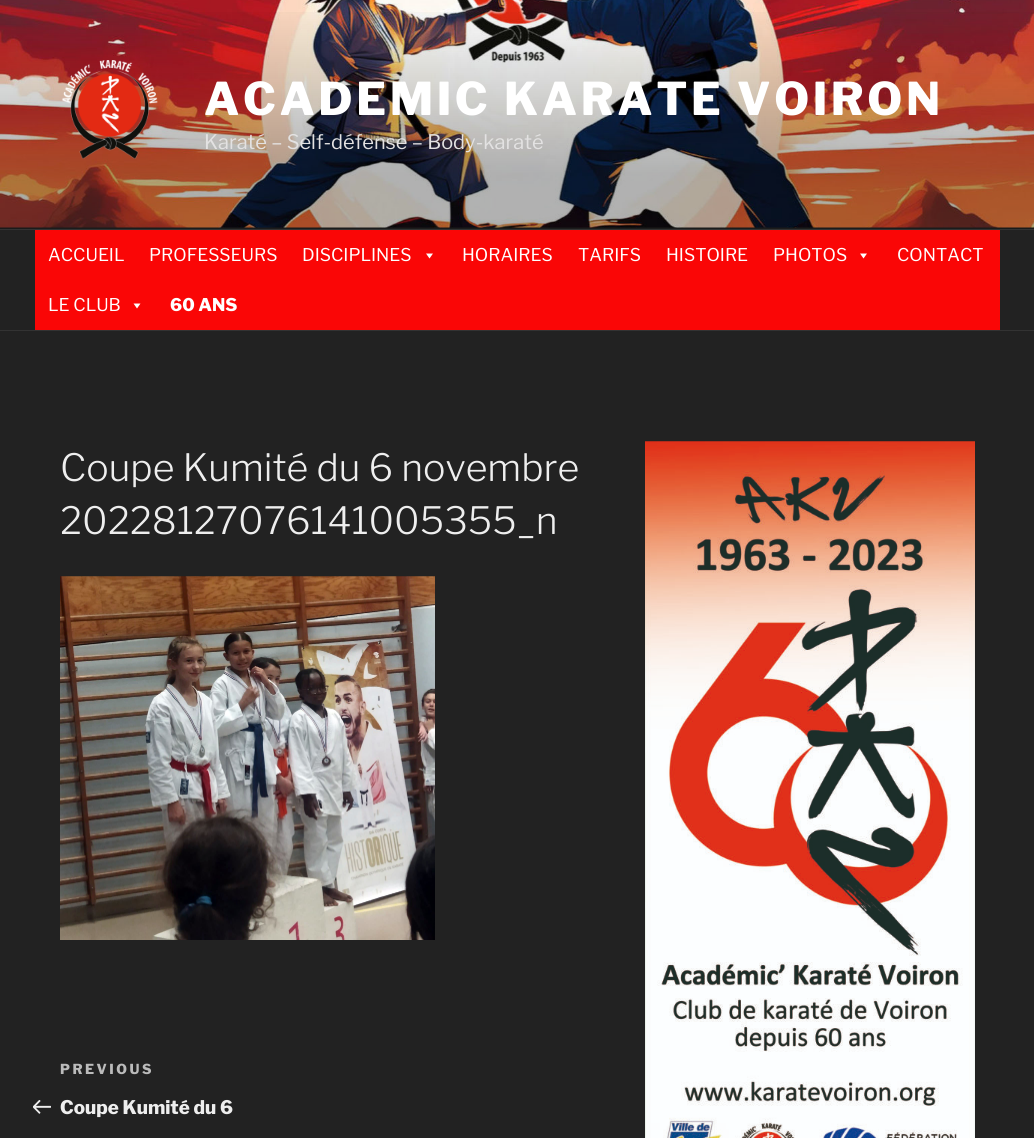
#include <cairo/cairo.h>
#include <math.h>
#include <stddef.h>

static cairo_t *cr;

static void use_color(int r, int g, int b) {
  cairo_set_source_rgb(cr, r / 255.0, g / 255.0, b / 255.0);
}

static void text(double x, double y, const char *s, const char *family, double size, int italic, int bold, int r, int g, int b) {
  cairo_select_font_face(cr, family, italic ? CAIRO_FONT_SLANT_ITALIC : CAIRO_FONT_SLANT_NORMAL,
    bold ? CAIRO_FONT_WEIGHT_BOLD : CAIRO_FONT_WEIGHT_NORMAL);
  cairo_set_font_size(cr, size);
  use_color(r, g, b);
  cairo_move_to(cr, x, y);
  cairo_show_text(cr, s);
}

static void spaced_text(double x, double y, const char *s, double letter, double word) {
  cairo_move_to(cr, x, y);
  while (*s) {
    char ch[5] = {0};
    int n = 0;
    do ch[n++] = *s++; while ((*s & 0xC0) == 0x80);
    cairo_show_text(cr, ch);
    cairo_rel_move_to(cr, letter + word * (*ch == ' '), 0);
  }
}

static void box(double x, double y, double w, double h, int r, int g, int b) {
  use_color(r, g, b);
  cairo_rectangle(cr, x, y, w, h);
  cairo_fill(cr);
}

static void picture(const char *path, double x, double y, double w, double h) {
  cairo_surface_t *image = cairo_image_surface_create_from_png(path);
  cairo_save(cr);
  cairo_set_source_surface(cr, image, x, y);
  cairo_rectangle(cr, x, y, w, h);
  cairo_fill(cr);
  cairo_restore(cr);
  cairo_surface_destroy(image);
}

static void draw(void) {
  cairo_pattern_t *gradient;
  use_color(34, 34, 34);
  cairo_paint(cr);
  box(0, 227, 1034, 2, 38, 38, 38);
  picture("img_01.png", 0, 0, 1034, 228);
  gradient = cairo_pattern_create_linear(518, 0, 518, 229);
  cairo_pattern_add_color_stop_rgba(gradient, 0, 0, 0, 0, 0);
  cairo_pattern_add_color_stop_rgba(gradient, 0.75, 0, 0, 0, 0.3);
  cairo_pattern_add_color_stop_rgba(gradient, 1, 0, 0, 0, 0.3);
  cairo_set_source(cr, gradient);
  cairo_pattern_destroy(gradient);
  cairo_rectangle(cr, 0, 12, 1034, 217);
  cairo_fill(cr);
  picture("img_02.png", 62, 60, 96, 99);
  box(0, 229, 1034, 1, 51, 51, 51);
  box(0, 330, 1034, 1, 51, 51, 51);
  box(35, 230, 965, 100, 250, 6, 6);
  use_color(255, 255, 255);
  cairo_new_path(cr);
  cairo_move_to(cr, 433, 253.5);
  cairo_line_to(cr, 429.5, 258.5);
  cairo_line_to(cr, 426, 253.5);
  cairo_close_path(cr);
  cairo_fill(cr);
  cairo_new_path(cr);
  cairo_move_to(cr, 867, 253.5);
  cairo_line_to(cr, 863.5, 258.5);
  cairo_line_to(cr, 860, 253.5);
  cairo_close_path(cr);
  cairo_fill(cr);
  cairo_new_path(cr);
  cairo_move_to(cr, 140.5, 303.5);
  cairo_line_to(cr, 137, 308.5);
  cairo_line_to(cr, 133.5, 303.5);
  cairo_close_path(cr);
  cairo_fill(cr);
  picture("img_03.png", 60, 576, 375, 364);
  picture("img_04.png", 33, 1100, 18, 14);
  picture("img_05.png", 645, 441, 330, 697);
  cairo_select_font_face(cr, "Libre Franklin ExtraBold", CAIRO_FONT_SLANT_NORMAL, CAIRO_FONT_WEIGHT_NORMAL);
  cairo_set_font_size(cr, 45);
  spaced_text(204, 115, "ACADEMIC KARATE VOIRON", 3.6, 0);
  text(204, 149, "Karaté – Self-défense – Body-karaté", "Libre Franklin", 20, 0, 0, 227, 226, 226);
  text(48, 261, "ACCUEIL", "Libre Franklin", 17.5, 0, 0, 255, 255, 255);
  text(149, 261, "PROFESSEURS", "Libre Franklin", 17.5, 0, 0, 255, 255, 255);
  text(302, 261, "DISCIPLINES", "Libre Franklin", 17.5, 0, 0, 255, 255, 255);
  text(462, 261, "HORAIRES", "Libre Franklin", 17.5, 0, 0, 255, 255, 255);
  text(578, 261, "TARIFS", "Libre Franklin", 17.5, 0, 0, 255, 255, 255);
  text(666, 261, "HISTOIRE", "Libre Franklin", 17.5, 0, 0, 255, 255, 255);
  text(773, 261, "PHOTOS", "Libre Franklin", 17.5, 0, 0, 255, 255, 255);
  text(897, 261, "CONTACT", "Libre Franklin", 17.5, 0, 0, 255, 255, 255);
  text(48, 311, "LE CLUB", "Libre Franklin", 17.5, 0, 0, 255, 255, 255);
  text(170, 311, "60 ANS", "Libre Franklin ExtraBold", 17.5, 0, 0, 255, 255, 255);
  text(60, 481, "Coupe Kumité du 6 novembre", "Libre Franklin Light", 37.5, 0, 0, 238, 238, 238);
  text(60, 534, "20228127076141005355_n", "Libre Franklin Light", 37.5, 0, 0, 238, 238, 238);
  cairo_select_font_face(cr, "Libre Franklin ExtraBold", CAIRO_FONT_SLANT_NORMAL, CAIRO_FONT_WEIGHT_NORMAL);
  cairo_set_font_size(cr, 13.75);
  use_color(187, 187, 187);
  spaced_text(60, 1074, "PREVIOUS", 2.5, 0);
  text(60, 1114, "Coupe Kumité du 6", "Libre Franklin ExtraBold", 18.75, 0, 0, 238, 238, 238);
}

int main(void) {
  cairo_surface_t *surface = cairo_image_surface_create(CAIRO_FORMAT_RGB24, 1034, 1138);
  cr = cairo_create(surface);
  cairo_font_options_t *options = cairo_font_options_create();
  cairo_font_options_set_hint_metrics(options, CAIRO_HINT_METRICS_OFF);
  cairo_font_options_set_hint_style(options, CAIRO_HINT_STYLE_NONE);
  cairo_set_font_options(cr, options);
  cairo_set_miter_limit(cr, 4);
  draw();
  cairo_surface_write_to_png(surface, "out.png");
  cairo_font_options_destroy(options);
  cairo_destroy(cr);
  cairo_surface_destroy(surface);
  return 0;
}
